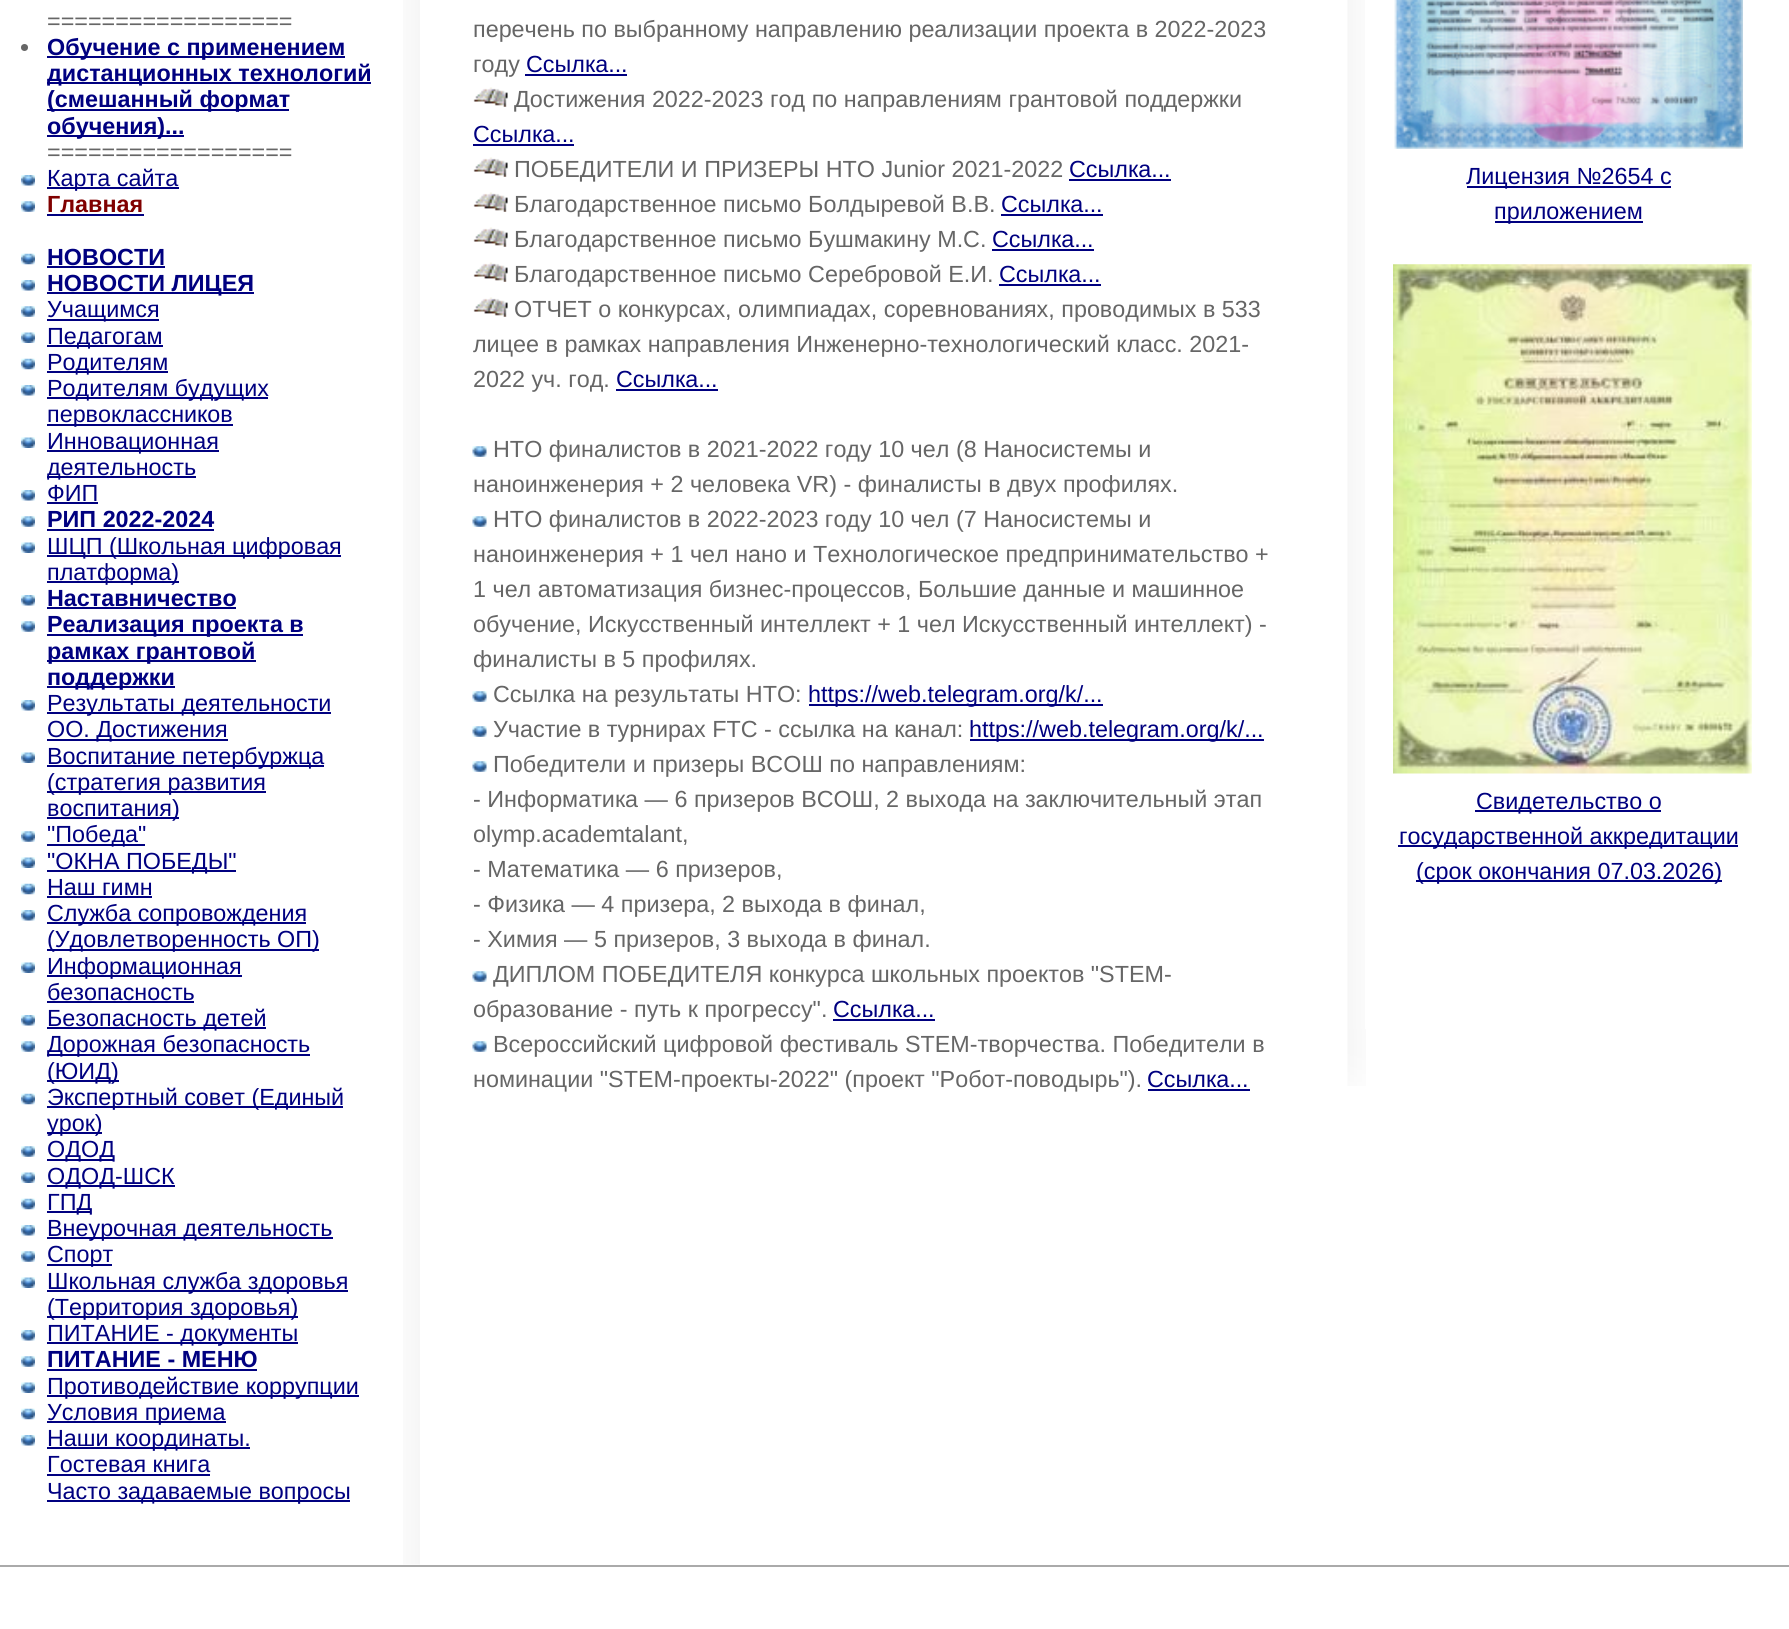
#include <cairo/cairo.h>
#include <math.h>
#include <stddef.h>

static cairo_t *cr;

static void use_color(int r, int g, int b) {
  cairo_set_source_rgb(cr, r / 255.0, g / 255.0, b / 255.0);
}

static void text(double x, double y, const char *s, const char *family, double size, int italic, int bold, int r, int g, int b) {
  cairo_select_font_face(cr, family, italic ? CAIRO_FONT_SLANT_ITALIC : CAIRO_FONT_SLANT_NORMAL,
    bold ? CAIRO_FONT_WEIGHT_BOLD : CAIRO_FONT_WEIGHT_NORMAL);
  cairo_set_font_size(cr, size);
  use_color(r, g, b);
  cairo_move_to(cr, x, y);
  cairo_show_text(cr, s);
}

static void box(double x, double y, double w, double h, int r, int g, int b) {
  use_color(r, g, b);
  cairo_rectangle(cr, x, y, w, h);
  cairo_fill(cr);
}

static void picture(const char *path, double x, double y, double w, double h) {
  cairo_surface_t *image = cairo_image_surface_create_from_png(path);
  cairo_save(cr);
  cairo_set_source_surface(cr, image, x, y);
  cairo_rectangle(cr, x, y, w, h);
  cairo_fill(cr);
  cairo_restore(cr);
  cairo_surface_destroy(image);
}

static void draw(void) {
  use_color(255, 255, 255);
  cairo_paint(cr);
  picture("img_01.png", 403, 0, 17, 1565);
  use_color(102, 102, 102);
  cairo_arc(cr, 24.5, 47.5, 3.5, 0, 2 * M_PI);
  cairo_fill(cr);
  box(47, 56, 298, 2, 0, 0, 128);
  box(47, 82, 324, 2, 0, 0, 128);
  box(47, 109, 242, 2, 0, 0, 128);
  box(47, 135, 137, 2, 0, 0, 128);
  picture("img_02.png", 21, 175, 14, 11);
  box(47, 187, 132, 2, 0, 0, 128);
  picture("img_03.png", 21, 201, 14, 11);
  box(47, 214, 97, 2, 0, 0, 128);
  picture("img_04.png", 21, 253, 14, 12);
  box(47, 266, 118, 2, 0, 0, 128);
  picture("img_02.png", 21, 280, 14, 11);
  box(47, 292, 207, 2, 0, 0, 128);
  picture("img_03.png", 21, 306, 14, 11);
  box(47, 319, 112, 2, 0, 0, 128);
  picture("img_05.png", 21, 332, 14, 11);
  box(47, 345, 116, 2, 0, 0, 128);
  picture("img_04.png", 21, 358, 14, 12);
  box(47, 371, 121, 2, 0, 0, 128);
  picture("img_02.png", 21, 385, 14, 11);
  box(47, 397, 221, 2, 0, 0, 128);
  box(47, 424, 186, 2, 0, 0, 128);
  picture("img_05.png", 21, 437, 14, 11);
  box(47, 450, 172, 2, 0, 0, 128);
  box(47, 476, 149, 2, 0, 0, 128);
  picture("img_02.png", 21, 490, 14, 11);
  box(47, 502, 51, 2, 0, 0, 128);
  picture("img_03.png", 21, 516, 14, 11);
  box(47, 529, 167, 2, 0, 0, 128);
  picture("img_05.png", 21, 542, 14, 11);
  box(47, 555, 294, 2, 0, 0, 128);
  box(47, 581, 132, 2, 0, 0, 128);
  picture("img_02.png", 21, 595, 14, 11);
  box(47, 607, 189, 2, 0, 0, 128);
  picture("img_03.png", 21, 621, 14, 11);
  box(47, 634, 256, 2, 0, 0, 128);
  box(47, 660, 209, 2, 0, 0, 128);
  box(47, 686, 128, 2, 0, 0, 128);
  picture("img_02.png", 21, 700, 14, 11);
  box(47, 712, 284, 2, 0, 0, 128);
  box(47, 739, 181, 2, 0, 0, 128);
  picture("img_05.png", 21, 752, 14, 11);
  box(47, 765, 277, 2, 0, 0, 128);
  box(47, 791, 219, 2, 0, 0, 128);
  box(47, 817, 132, 2, 0, 0, 128);
  picture("img_03.png", 21, 831, 14, 11);
  box(47, 844, 98, 2, 0, 0, 128);
  picture("img_05.png", 21, 857, 14, 11);
  box(47, 870, 189, 2, 0, 0, 128);
  picture("img_04.png", 21, 883, 14, 12);
  box(47, 896, 105, 2, 0, 0, 128);
  picture("img_02.png", 21, 910, 14, 11);
  box(47, 922, 259, 2, 0, 0, 128);
  box(47, 949, 272, 2, 0, 0, 128);
  picture("img_05.png", 21, 962, 14, 11);
  box(47, 975, 195, 2, 0, 0, 128);
  box(47, 1001, 147, 2, 0, 0, 128);
  picture("img_02.png", 21, 1015, 14, 11);
  box(47, 1027, 219, 2, 0, 0, 128);
  picture("img_03.png", 21, 1041, 14, 11);
  box(47, 1054, 263, 2, 0, 0, 128);
  box(47, 1080, 72, 2, 0, 0, 128);
  picture("img_04.png", 21, 1093, 14, 12);
  box(47, 1106, 296, 2, 0, 0, 128);
  box(47, 1132, 55, 2, 0, 0, 128);
  picture("img_03.png", 21, 1146, 14, 11);
  box(47, 1159, 67, 2, 0, 0, 128);
  picture("img_05.png", 21, 1172, 14, 11);
  box(47, 1185, 128, 2, 0, 0, 128);
  picture("img_04.png", 21, 1198, 14, 12);
  box(47, 1211, 44, 2, 0, 0, 128);
  picture("img_02.png", 21, 1225, 14, 11);
  box(47, 1237, 286, 2, 0, 0, 128);
  picture("img_03.png", 21, 1251, 14, 11);
  box(47, 1264, 65, 2, 0, 0, 128);
  picture("img_05.png", 21, 1277, 14, 11);
  box(47, 1290, 301, 2, 0, 0, 128);
  box(47, 1316, 251, 2, 0, 0, 128);
  picture("img_02.png", 21, 1330, 14, 11);
  box(47, 1342, 251, 2, 0, 0, 128);
  picture("img_03.png", 21, 1356, 14, 11);
  box(47, 1369, 210, 2, 0, 0, 128);
  picture("img_05.png", 21, 1382, 14, 11);
  box(47, 1395, 312, 2, 0, 0, 128);
  picture("img_04.png", 21, 1408, 14, 12);
  box(47, 1421, 179, 2, 0, 0, 128);
  picture("img_02.png", 21, 1435, 14, 11);
  box(47, 1447, 203, 2, 0, 0, 128);
  box(47, 1474, 163, 2, 0, 0, 128);
  box(47, 1500, 303, 2, 0, 0, 128);
  box(525, 74, 102, 2, 0, 0, 128);
  picture("img_06.png", 473, 87, 35, 20);
  box(473, 144, 101, 2, 0, 0, 128);
  picture("img_06.png", 473, 157, 35, 20);
  box(1069, 179, 102, 2, 0, 0, 128);
  picture("img_06.png", 473, 192, 35, 20);
  box(1001, 214, 102, 2, 0, 0, 128);
  picture("img_06.png", 473, 227, 35, 20);
  box(992, 249, 102, 2, 0, 0, 128);
  picture("img_06.png", 473, 262, 35, 20);
  box(999, 284, 102, 2, 0, 0, 128);
  picture("img_06.png", 473, 297, 35, 20);
  box(616, 389, 102, 2, 0, 0, 128);
  picture("img_07.png", 472, 446, 15, 11);
  picture("img_07.png", 472, 516, 15, 11);
  picture("img_07.png", 472, 691, 15, 11);
  box(809, 704, 294, 2, 0, 0, 128);
  picture("img_07.png", 472, 726, 15, 11);
  box(970, 739, 294, 2, 0, 0, 128);
  picture("img_07.png", 472, 761, 15, 11);
  picture("img_07.png", 472, 971, 15, 11);
  box(833, 1019, 102, 2, 0, 0, 128);
  picture("img_07.png", 472, 1041, 15, 11);
  box(1148, 1089, 102, 2, 0, 0, 128);
  picture("img_08.png", 1347, 0, 18, 1029);
  picture("img_09.png", 1394, 0, 349, 149);
  box(1467, 186, 204, 2, 0, 0, 128);
  box(1495, 221, 148, 2, 0, 0, 128);
  picture("img_10.png", 1393, 264, 359, 510);
  box(1475, 810, 186, 2, 0, 0, 128);
  box(1398, 845, 340, 2, 0, 0, 128);
  box(1416, 880, 306, 2, 0, 0, 128);
  picture("img_11.png", 1347, 1029, 19, 57);
  box(0, 1565, 1789, 2, 170, 170, 170);
  text(47, 29, "==================", "Liberation Sans", 23.35, 0, 0, 102, 102, 102);
  text(47, 55, "Обучение с применением", "Liberation Sans", 23.35, 0, 1, 0, 0, 128);
  text(47, 81, "дистанционных технологий", "Liberation Sans", 23.35, 0, 1, 0, 0, 128);
  text(47, 107, "(смешанный формат", "Liberation Sans", 23.35, 0, 1, 0, 0, 128);
  text(47, 134, "обучения)...", "Liberation Sans", 23.35, 0, 1, 0, 0, 128);
  text(47, 160, "==================", "Liberation Sans", 23.35, 0, 0, 102, 102, 102);
  text(47, 186, "Карта сайта", "Liberation Sans", 23.35, 0, 0, 0, 0, 128);
  text(47, 212, "Главная", "Liberation Sans", 23.35, 0, 1, 128, 0, 0);
  text(47, 265, "НОВОСТИ", "Liberation Sans", 23.35, 0, 1, 0, 0, 128);
  text(47, 291, "НОВОСТИ ЛИЦЕЯ", "Liberation Sans", 23.35, 0, 1, 0, 0, 128);
  text(47, 317, "Учащимся", "Liberation Sans", 23.35, 0, 0, 0, 0, 128);
  text(47, 344, "Педагогам", "Liberation Sans", 23.35, 0, 0, 0, 0, 128);
  text(47, 370, "Родителям", "Liberation Sans", 23.35, 0, 0, 0, 0, 128);
  text(47, 396, "Родителям будущих", "Liberation Sans", 23.35, 0, 0, 0, 0, 128);
  text(47, 422, "первоклассников", "Liberation Sans", 23.35, 0, 0, 0, 0, 128);
  text(47, 449, "Инновационная", "Liberation Sans", 23.35, 0, 0, 0, 0, 128);
  text(47, 475, "деятельность", "Liberation Sans", 23.35, 0, 0, 0, 0, 128);
  text(47, 501, "ФИП", "Liberation Sans", 23.35, 0, 0, 0, 0, 128);
  text(47, 527, "РИП 2022-2024", "Liberation Sans", 23.35, 0, 1, 0, 0, 128);
  text(47, 554, "ШЦП (Школьная цифровая", "Liberation Sans", 23.35, 0, 0, 0, 0, 128);
  text(47, 580, "платформа)", "Liberation Sans", 23.35, 0, 0, 0, 0, 128);
  text(47, 606, "Наставничество", "Liberation Sans", 23.35, 0, 1, 0, 0, 128);
  text(47, 632, "Реализация проекта в", "Liberation Sans", 23.35, 0, 1, 0, 0, 128);
  text(47, 659, "рамках грантовой", "Liberation Sans", 23.35, 0, 1, 0, 0, 128);
  text(47, 685, "поддержки", "Liberation Sans", 23.35, 0, 1, 0, 0, 128);
  text(47, 711, "Результаты деятельности", "Liberation Sans", 23.35, 0, 0, 0, 0, 128);
  text(47, 737, "ОО. Достижения", "Liberation Sans", 23.35, 0, 0, 0, 0, 128);
  text(47, 764, "Воспитание петербуржца", "Liberation Sans", 23.35, 0, 0, 0, 0, 128);
  text(47, 790, "(стратегия развития", "Liberation Sans", 23.35, 0, 0, 0, 0, 128);
  text(47, 816, "воспитания)", "Liberation Sans", 23.35, 0, 0, 0, 0, 128);
  text(47, 842, "\"Победа\"", "Liberation Sans", 23.35, 0, 0, 0, 0, 128);
  text(47, 869, "\"ОКНА ПОБЕДЫ\"", "Liberation Sans", 23.35, 0, 0, 0, 0, 128);
  text(47, 895, "Наш гимн", "Liberation Sans", 23.35, 0, 0, 0, 0, 128);
  text(47, 921, "Служба сопровождения", "Liberation Sans", 23.35, 0, 0, 0, 0, 128);
  text(47, 947, "(Удовлетворенность ОП)", "Liberation Sans", 23.35, 0, 0, 0, 0, 128);
  text(47, 974, "Информационная", "Liberation Sans", 23.35, 0, 0, 0, 0, 128);
  text(47, 1000, "безопасность", "Liberation Sans", 23.35, 0, 0, 0, 0, 128);
  text(47, 1026, "Безопасность детей", "Liberation Sans", 23.35, 0, 0, 0, 0, 128);
  text(47, 1052, "Дорожная безопасность", "Liberation Sans", 23.35, 0, 0, 0, 0, 128);
  text(47, 1079, "(ЮИД)", "Liberation Sans", 23.35, 0, 0, 0, 0, 128);
  text(47, 1105, "Экспертный совет (Единый", "Liberation Sans", 23.35, 0, 0, 0, 0, 128);
  text(47, 1131, "урок)", "Liberation Sans", 23.35, 0, 0, 0, 0, 128);
  text(47, 1157, "ОДОД", "Liberation Sans", 23.35, 0, 0, 0, 0, 128);
  text(47, 1184, "ОДОД-ШСК", "Liberation Sans", 23.35, 0, 0, 0, 0, 128);
  text(47, 1210, "ГПД", "Liberation Sans", 23.35, 0, 0, 0, 0, 128);
  text(47, 1236, "Внеурочная деятельность", "Liberation Sans", 23.35, 0, 0, 0, 0, 128);
  text(47, 1262, "Спорт", "Liberation Sans", 23.35, 0, 0, 0, 0, 128);
  text(47, 1289, "Школьная служба здоровья", "Liberation Sans", 23.35, 0, 0, 0, 0, 128);
  text(47, 1315, "(Территория здоровья)", "Liberation Sans", 23.35, 0, 0, 0, 0, 128);
  text(47, 1341, "ПИТАНИЕ - документы", "Liberation Sans", 23.35, 0, 0, 0, 0, 128);
  text(47, 1367, "ПИТАНИЕ - МЕНЮ", "Liberation Sans", 23.35, 0, 1, 0, 0, 128);
  text(47, 1394, "Противодействие коррупции", "Liberation Sans", 23.35, 0, 0, 0, 0, 128);
  text(47, 1420, "Условия приема", "Liberation Sans", 23.35, 0, 0, 0, 0, 128);
  text(47, 1446, "Наши координаты.", "Liberation Sans", 23.35, 0, 0, 0, 0, 128);
  text(47, 1472, "Гостевая книга", "Liberation Sans", 23.35, 0, 0, 0, 0, 128);
  text(47, 1499, "Часто задаваемые вопросы", "Liberation Sans", 23.35, 0, 0, 0, 0, 128);
  text(473, 37, "перечень по выбранному направлению реализации проекта в 2022-2023", "Liberation Sans", 23.35, 0, 0, 102, 102, 102);
  text(473, 72, "году", "Liberation Sans", 23.35, 0, 0, 102, 102, 102);
  text(526, 72, "Ссылка...", "Liberation Sans", 23.35, 0, 0, 0, 0, 128);
  text(514, 107, "Достижения 2022-2023 год по направлениям грантовой поддержки", "Liberation Sans", 23.35, 0, 0, 102, 102, 102);
  text(473, 142, "Ссылка...", "Liberation Sans", 23.35, 0, 0, 0, 0, 128);
  text(514, 177, "ПОБЕДИТЕЛИ И ПРИЗЕРЫ НТО Junior 2021-2022", "Liberation Sans", 23.35, 0, 0, 102, 102, 102);
  text(1069, 177, "Ссылка...", "Liberation Sans", 23.35, 0, 0, 0, 0, 128);
  text(514, 212, "Благодарственное письмо Болдыревой В.В.", "Liberation Sans", 23.35, 0, 0, 102, 102, 102);
  text(1001, 212, "Ссылка...", "Liberation Sans", 23.35, 0, 0, 0, 0, 128);
  text(514, 247, "Благодарственное письмо Бушмакину М.С.", "Liberation Sans", 23.35, 0, 0, 102, 102, 102);
  text(992, 247, "Ссылка...", "Liberation Sans", 23.35, 0, 0, 0, 0, 128);
  text(514, 282, "Благодарственное письмо Серебровой Е.И.", "Liberation Sans", 23.35, 0, 0, 102, 102, 102);
  text(999, 282, "Ссылка...", "Liberation Sans", 23.35, 0, 0, 0, 0, 128);
  text(514, 317, "ОТЧЕТ о конкурсах, олимпиадах, соревнованиях, проводимых в 533", "Liberation Sans", 23.35, 0, 0, 102, 102, 102);
  text(473, 352, "лицее в рамках направления Инженерно-технологический класс. 2021-", "Liberation Sans", 23.35, 0, 0, 102, 102, 102);
  text(473, 387, "2022 уч. год.", "Liberation Sans", 23.35, 0, 0, 102, 102, 102);
  text(616, 387, "Ссылка...", "Liberation Sans", 23.35, 0, 0, 0, 0, 128);
  text(493, 457, "НТО финалистов в 2021-2022 году 10 чел (8 Наносистемы и", "Liberation Sans", 23.35, 0, 0, 102, 102, 102);
  text(473, 492, "наноинженерия + 2 человека VR) - финалисты в двух профилях.", "Liberation Sans", 23.35, 0, 0, 102, 102, 102);
  text(493, 527, "НТО финалистов в 2022-2023 году 10 чел (7 Наносистемы и", "Liberation Sans", 23.35, 0, 0, 102, 102, 102);
  text(473, 562, "наноинженерия + 1 чел нано и Технологическое предпринимательство +", "Liberation Sans", 23.35, 0, 0, 102, 102, 102);
  text(473, 597, "1 чел автоматизация бизнес-процессов, Большие данные и машинное", "Liberation Sans", 23.35, 0, 0, 102, 102, 102);
  text(473, 632, "обучение, Искусственный интеллект + 1 чел Искусственный интеллект) -", "Liberation Sans", 23.35, 0, 0, 102, 102, 102);
  text(473, 667, "финалисты в 5 профилях.", "Liberation Sans", 23.35, 0, 0, 102, 102, 102);
  text(493, 702, "Ссылка на результаты НТО:", "Liberation Sans", 23.35, 0, 0, 102, 102, 102);
  text(808, 702, "https://web.telegram.org/k/...", "Liberation Sans", 23.35, 0, 0, 0, 0, 128);
  text(493, 737, "Участие в турнирах FTC - ссылка на канал:", "Liberation Sans", 23.35, 0, 0, 102, 102, 102);
  text(969, 737, "https://web.telegram.org/k/...", "Liberation Sans", 23.35, 0, 0, 0, 0, 128);
  text(493, 772, "Победители и призеры ВСОШ по направлениям:", "Liberation Sans", 23.35, 0, 0, 102, 102, 102);
  text(473, 807, "- Информатика — 6 призеров ВСОШ, 2 выхода на заключительный этап", "Liberation Sans", 23.35, 0, 0, 102, 102, 102);
  text(473, 842, "olymp.academtalant,", "Liberation Sans", 23.35, 0, 0, 102, 102, 102);
  text(473, 877, "- Математика — 6 призеров,", "Liberation Sans", 23.35, 0, 0, 102, 102, 102);
  text(473, 912, "- Физика — 4 призера, 2 выхода в финал,", "Liberation Sans", 23.35, 0, 0, 102, 102, 102);
  text(473, 947, "- Химия — 5 призеров, 3 выхода в финал.", "Liberation Sans", 23.35, 0, 0, 102, 102, 102);
  text(493, 982, "ДИПЛОМ ПОБЕДИТЕЛЯ конкурса школьных проектов \"STEM-", "Liberation Sans", 23.35, 0, 0, 102, 102, 102);
  text(473, 1017, "образование - путь к прогрессу\".", "Liberation Sans", 23.35, 0, 0, 102, 102, 102);
  text(833, 1017, "Ссылка...", "Liberation Sans", 23.35, 0, 0, 0, 0, 128);
  text(493, 1052, "Всероссийский цифровой фестиваль STEM-творчества. Победители в", "Liberation Sans", 23.35, 0, 0, 102, 102, 102);
  text(473, 1087, "номинации \"STEM-проекты-2022\" (проект \"Робот-поводырь\").", "Liberation Sans", 23.35, 0, 0, 102, 102, 102);
  text(1147, 1087, "Ссылка...", "Liberation Sans", 23.35, 0, 0, 0, 0, 128);
  text(1466, 184, "Лицензия №2654 с", "Liberation Sans", 23.35, 0, 0, 0, 0, 128);
  text(1494, 219, "приложением", "Liberation Sans", 23.35, 0, 0, 0, 0, 128);
  text(1476, 809, "Свидетельство о", "Liberation Sans", 23.35, 0, 0, 0, 0, 128);
  text(1399, 844, "государственной аккредитации", "Liberation Sans", 23.35, 0, 0, 0, 0, 128);
  text(1416, 879, "(срок окончания 07.03.2026)", "Liberation Sans", 23.35, 0, 0, 0, 0, 128);
}

int main(void) {
  cairo_surface_t *surface = cairo_image_surface_create(CAIRO_FORMAT_RGB24, 1789, 1629);
  cr = cairo_create(surface);
  cairo_font_options_t *options = cairo_font_options_create();
  cairo_font_options_set_hint_metrics(options, CAIRO_HINT_METRICS_OFF);
  cairo_font_options_set_hint_style(options, CAIRO_HINT_STYLE_NONE);
  cairo_set_font_options(cr, options);
  cairo_set_miter_limit(cr, 4);
  draw();
  cairo_surface_write_to_png(surface, "out.png");
  cairo_font_options_destroy(options);
  cairo_destroy(cr);
  cairo_surface_destroy(surface);
  return 0;
}
